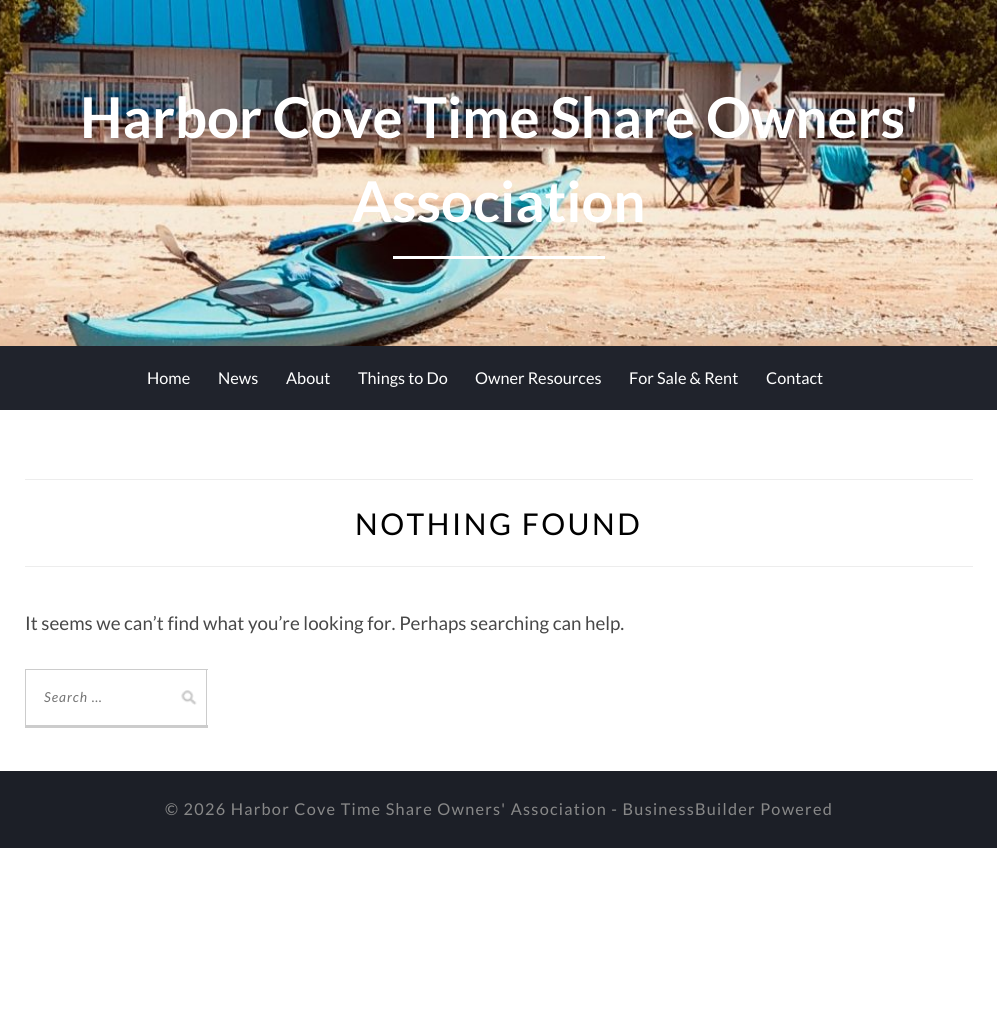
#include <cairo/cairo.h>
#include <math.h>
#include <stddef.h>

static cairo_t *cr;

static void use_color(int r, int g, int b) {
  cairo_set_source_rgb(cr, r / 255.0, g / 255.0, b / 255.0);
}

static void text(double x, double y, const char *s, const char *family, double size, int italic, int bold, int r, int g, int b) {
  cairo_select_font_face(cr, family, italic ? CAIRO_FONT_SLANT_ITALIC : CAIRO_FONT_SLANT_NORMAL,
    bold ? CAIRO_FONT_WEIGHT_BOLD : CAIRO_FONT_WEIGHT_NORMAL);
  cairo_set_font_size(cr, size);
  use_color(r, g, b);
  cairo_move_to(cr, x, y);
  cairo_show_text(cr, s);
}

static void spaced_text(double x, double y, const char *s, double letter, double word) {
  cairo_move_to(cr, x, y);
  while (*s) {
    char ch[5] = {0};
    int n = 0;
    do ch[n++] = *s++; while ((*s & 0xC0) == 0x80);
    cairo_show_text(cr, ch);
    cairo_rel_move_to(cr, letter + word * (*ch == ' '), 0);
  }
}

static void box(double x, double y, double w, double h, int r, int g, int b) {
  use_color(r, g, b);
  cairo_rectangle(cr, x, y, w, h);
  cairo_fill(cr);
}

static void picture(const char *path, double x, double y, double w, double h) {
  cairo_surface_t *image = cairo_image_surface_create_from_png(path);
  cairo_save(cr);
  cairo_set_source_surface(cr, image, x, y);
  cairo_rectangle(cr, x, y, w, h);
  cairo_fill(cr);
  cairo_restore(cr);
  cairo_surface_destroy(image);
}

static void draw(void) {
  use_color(255, 255, 255);
  cairo_paint(cr);
  picture("img_01.png", 0, 0, 997, 346);
  box(393, 256, 212, 3, 255, 255, 255);
  box(0, 346, 997, 64, 32, 35, 44);
  box(25, 479, 948, 1, 237, 237, 237);
  box(25, 566, 948, 1, 237, 237, 237);
  picture("img_02.png", 181, 690, 16, 15);
  box(25, 669, 183, 1, 204, 204, 204);
  box(206, 669, 1, 59, 204, 204, 204);
  box(25, 725, 183, 3, 204, 204, 204);
  box(25, 669, 1, 59, 204, 204, 204);
  box(0, 771, 997, 77, 28, 31, 39);
  text(80, 138, "Harbor Cove Time Share Owners'", "Lato", 56.25, 0, 1, 255, 255, 255);
  text(352, 222, "Association", "Lato", 56.25, 0, 1, 255, 255, 255);
  text(147, 384, "Home", "Lato", 16.25, 0, 0, 255, 255, 255);
  text(218, 384, "News", "Lato", 16.25, 0, 0, 255, 255, 255);
  text(286, 384, "About", "Lato", 16.25, 0, 0, 255, 255, 255);
  text(358, 384, "Things to Do", "Lato", 16.25, 0, 0, 255, 255, 255);
  text(475, 384, "Owner Resources", "Lato", 16.25, 0, 0, 255, 255, 255);
  text(629, 384, "For Sale & Rent", "Lato", 16.25, 0, 0, 255, 255, 255);
  text(766, 384, "Contact", "Lato", 16.25, 0, 0, 255, 255, 255);
  cairo_set_font_size(cr, 30);
  use_color(0, 0, 0);
  spaced_text(355, 535, "NOTHING FOUND", 2.5, 0);
  text(25, 630, "It seems we can’t find what you’re looking for. Perhaps searching can help.", "Lato", 18.75, 0, 0, 72, 72, 72);
  cairo_select_font_face(cr, "Lato", CAIRO_FONT_SLANT_ITALIC, CAIRO_FONT_WEIGHT_NORMAL);
  cairo_set_font_size(cr, 13.75);
  use_color(117, 117, 117);
  spaced_text(44, 702, "Search …", 1, 0);
  cairo_select_font_face(cr, "Lato", CAIRO_FONT_SLANT_NORMAL, CAIRO_FONT_WEIGHT_NORMAL);
  cairo_set_font_size(cr, 16.25);
  use_color(136, 136, 136);
  spaced_text(165, 815, "© 2026 Harbor Cove Time Share Owners' Association - BusinessBuilder Powered", 1.25, 0);
}

int main(void) {
  cairo_surface_t *surface = cairo_image_surface_create(CAIRO_FORMAT_RGB24, 997, 1027);
  cr = cairo_create(surface);
  cairo_font_options_t *options = cairo_font_options_create();
  cairo_font_options_set_hint_metrics(options, CAIRO_HINT_METRICS_OFF);
  cairo_font_options_set_hint_style(options, CAIRO_HINT_STYLE_NONE);
  cairo_set_font_options(cr, options);
  cairo_set_miter_limit(cr, 4);
  draw();
  cairo_surface_write_to_png(surface, "out.png");
  cairo_font_options_destroy(options);
  cairo_destroy(cr);
  cairo_surface_destroy(surface);
  return 0;
}
